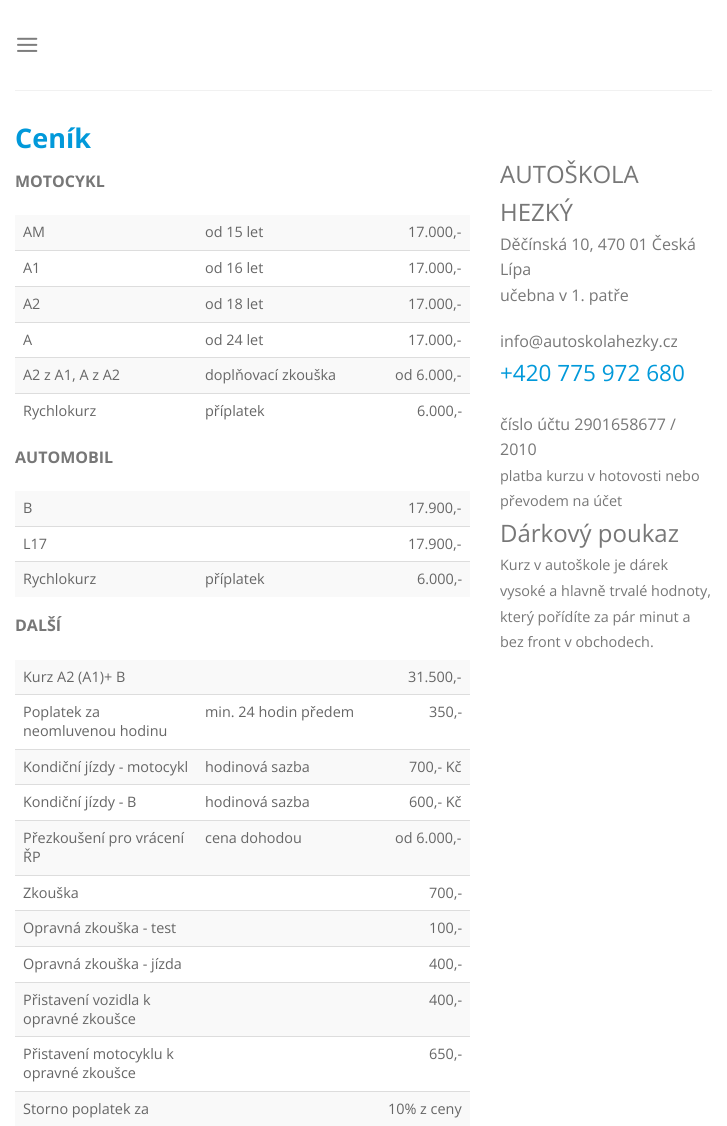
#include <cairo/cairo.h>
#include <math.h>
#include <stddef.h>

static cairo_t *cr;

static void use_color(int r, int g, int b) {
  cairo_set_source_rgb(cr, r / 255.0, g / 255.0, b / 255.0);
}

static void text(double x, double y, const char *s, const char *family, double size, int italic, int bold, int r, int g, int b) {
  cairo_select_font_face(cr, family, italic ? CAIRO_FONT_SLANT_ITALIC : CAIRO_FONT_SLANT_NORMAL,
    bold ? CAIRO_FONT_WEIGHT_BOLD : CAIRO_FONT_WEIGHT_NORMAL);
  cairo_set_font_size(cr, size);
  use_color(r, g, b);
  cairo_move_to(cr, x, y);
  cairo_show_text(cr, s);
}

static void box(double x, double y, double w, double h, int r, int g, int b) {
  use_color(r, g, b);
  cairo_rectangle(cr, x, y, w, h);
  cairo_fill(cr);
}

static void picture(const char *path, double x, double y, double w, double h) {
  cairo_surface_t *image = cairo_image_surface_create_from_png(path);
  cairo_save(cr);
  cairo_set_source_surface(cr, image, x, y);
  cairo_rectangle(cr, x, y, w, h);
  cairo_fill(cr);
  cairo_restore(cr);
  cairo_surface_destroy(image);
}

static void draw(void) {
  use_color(255, 255, 255);
  cairo_paint(cr);
  picture("img_01.png", 17, 37, 21, 15);
  box(15, 90, 697, 1, 241, 241, 241);
  box(15, 215, 455, 35, 249, 249, 249);
  box(15, 250, 455, 1, 221, 221, 221);
  box(15, 287, 455, 35, 249, 249, 249);
  box(15, 286, 455, 1, 221, 221, 221);
  box(15, 322, 455, 1, 221, 221, 221);
  box(15, 358, 455, 35, 249, 249, 249);
  box(15, 357, 455, 1, 221, 221, 221);
  box(15, 393, 455, 1, 221, 221, 221);
  box(15, 491, 455, 35, 249, 249, 249);
  box(15, 526, 455, 1, 221, 221, 221);
  box(15, 562, 455, 35, 249, 249, 249);
  box(15, 561, 455, 1, 221, 221, 221);
  box(15, 660, 455, 34, 249, 249, 249);
  box(15, 694, 455, 1, 221, 221, 221);
  box(15, 750, 455, 34, 249, 249, 249);
  box(15, 749, 455, 1, 221, 221, 221);
  box(15, 784, 455, 1, 221, 221, 221);
  box(15, 821, 455, 54, 249, 249, 249);
  box(15, 820, 455, 1, 221, 221, 221);
  box(15, 875, 455, 1, 221, 221, 221);
  box(15, 911, 455, 35, 249, 249, 249);
  box(15, 910, 455, 1, 221, 221, 221);
  box(15, 946, 455, 1, 221, 221, 221);
  box(15, 983, 455, 53, 249, 249, 249);
  box(15, 982, 455, 1, 221, 221, 221);
  box(15, 1036, 455, 1, 221, 221, 221);
  box(15, 1092, 455, 34, 249, 249, 249);
  box(15, 1091, 455, 1, 221, 221, 221);
  text(15, 148, "Ceník", "Open Sans", 27, 0, 1, 1, 153, 218);
  text(15, 187, "MOTOCYKL", "Open Sans", 16, 0, 1, 119, 119, 119);
  text(23, 237, "AM", "Open Sans", 14.4, 0, 0, 102, 102, 102);
  text(205, 237, "od 15 let", "Open Sans", 14.4, 0, 0, 102, 102, 102);
  text(408, 237, "17.000,-", "Open Sans", 14.4, 0, 0, 102, 102, 102);
  text(23, 273, "A1", "Open Sans", 14.4, 0, 0, 102, 102, 102);
  text(205, 273, "od 16 let", "Open Sans", 14.4, 0, 0, 102, 102, 102);
  text(408, 273, "17.000,-", "Open Sans", 14.4, 0, 0, 102, 102, 102);
  text(23, 309, "A2", "Open Sans", 14.4, 0, 0, 102, 102, 102);
  text(205, 309, "od 18 let", "Open Sans", 14.4, 0, 0, 102, 102, 102);
  text(408, 309, "17.000,-", "Open Sans", 14.4, 0, 0, 102, 102, 102);
  text(23, 345, "A", "Open Sans", 14.4, 0, 0, 102, 102, 102);
  text(205, 345, "od 24 let", "Open Sans", 14.4, 0, 0, 102, 102, 102);
  text(408, 345, "17.000,-", "Open Sans", 14.4, 0, 0, 102, 102, 102);
  text(23, 380, "A2 z A1, A z A2", "Open Sans", 14.4, 0, 0, 102, 102, 102);
  text(205, 380, "doplňovací zkouška", "Open Sans", 14.4, 0, 0, 102, 102, 102);
  text(395, 380, "od 6.000,-", "Open Sans", 14.4, 0, 0, 102, 102, 102);
  text(23, 416, "Rychlokurz", "Open Sans", 14.4, 0, 0, 102, 102, 102);
  text(205, 416, "příplatek", "Open Sans", 14.4, 0, 0, 102, 102, 102);
  text(417, 416, "6.000,-", "Open Sans", 14.4, 0, 0, 102, 102, 102);
  text(15, 463, "AUTOMOBIL", "Open Sans", 16, 0, 1, 119, 119, 119);
  text(23, 513, "B", "Open Sans", 14.4, 0, 0, 102, 102, 102);
  text(408, 513, "17.900,-", "Open Sans", 14.4, 0, 0, 102, 102, 102);
  text(23, 549, "L17", "Open Sans", 14.4, 0, 0, 102, 102, 102);
  text(408, 549, "17.900,-", "Open Sans", 14.4, 0, 0, 102, 102, 102);
  text(23, 584, "Rychlokurz", "Open Sans", 14.4, 0, 0, 102, 102, 102);
  text(205, 584, "příplatek", "Open Sans", 14.4, 0, 0, 102, 102, 102);
  text(417, 584, "6.000,-", "Open Sans", 14.4, 0, 0, 102, 102, 102);
  text(15, 631, "DALŠÍ", "Open Sans", 16, 0, 1, 119, 119, 119);
  text(23, 682, "Kurz A2 (A1)+ B", "Open Sans", 14.4, 0, 0, 102, 102, 102);
  text(408, 682, "31.500,-", "Open Sans", 14.4, 0, 0, 102, 102, 102);
  text(23, 717, "Poplatek za", "Open Sans", 14.4, 0, 0, 102, 102, 102);
  text(23, 736, "neomluvenou hodinu", "Open Sans", 14.4, 0, 0, 102, 102, 102);
  text(205, 717, "min. 24 hodin předem", "Open Sans", 14.4, 0, 0, 102, 102, 102);
  text(429, 717, "350,-", "Open Sans", 14.4, 0, 0, 102, 102, 102);
  text(23, 772, "Kondiční jízdy - motocykl", "Open Sans", 14.4, 0, 0, 102, 102, 102);
  text(205, 772, "hodinová sazba", "Open Sans", 14.4, 0, 0, 102, 102, 102);
  text(409, 772, "700,- Kč", "Open Sans", 14.4, 0, 0, 102, 102, 102);
  text(23, 807, "Kondiční jízdy - B", "Open Sans", 14.4, 0, 0, 102, 102, 102);
  text(205, 807, "hodinová sazba", "Open Sans", 14.4, 0, 0, 102, 102, 102);
  text(409, 807, "600,- Kč", "Open Sans", 14.4, 0, 0, 102, 102, 102);
  text(23, 843, "Přezkoušení pro vrácení", "Open Sans", 14.4, 0, 0, 102, 102, 102);
  text(23, 862, "ŘP", "Open Sans", 14.4, 0, 0, 102, 102, 102);
  text(205, 843, "cena dohodou", "Open Sans", 14.4, 0, 0, 102, 102, 102);
  text(395, 843, "od 6.000,-", "Open Sans", 14.4, 0, 0, 102, 102, 102);
  text(23, 898, "Zkouška", "Open Sans", 14.4, 0, 0, 102, 102, 102);
  text(429, 898, "700,-", "Open Sans", 14.4, 0, 0, 102, 102, 102);
  text(23, 933, "Opravná zkouška - test", "Open Sans", 14.4, 0, 0, 102, 102, 102);
  text(429, 933, "100,-", "Open Sans", 14.4, 0, 0, 102, 102, 102);
  text(23, 969, "Opravná zkouška - jízda", "Open Sans", 14.4, 0, 0, 102, 102, 102);
  text(429, 969, "400,-", "Open Sans", 14.4, 0, 0, 102, 102, 102);
  text(23, 1005, "Přistavení vozidla k", "Open Sans", 14.4, 0, 0, 102, 102, 102);
  text(23, 1024, "opravné zkoušce", "Open Sans", 14.4, 0, 0, 102, 102, 102);
  text(429, 1005, "400,-", "Open Sans", 14.4, 0, 0, 102, 102, 102);
  text(23, 1059, "Přistavení motocyklu k", "Open Sans", 14.4, 0, 0, 102, 102, 102);
  text(23, 1078, "opravné zkoušce", "Open Sans", 14.4, 0, 0, 102, 102, 102);
  text(429, 1059, "650,-", "Open Sans", 14.4, 0, 0, 102, 102, 102);
  text(23, 1114, "Storno poplatek za", "Open Sans", 14.4, 0, 0, 102, 102, 102);
  text(388, 1114, "10% z ceny", "Open Sans", 14.4, 0, 0, 102, 102, 102);
  text(500, 183, "AUTOŠKOLA", "Open Sans", 24, 0, 0, 119, 119, 119);
  text(500, 221, "HEZKÝ", "Open Sans", 24, 0, 0, 119, 119, 119);
  text(500, 250, "Děčínská 10, 470 01 Česká", "Open Sans", 16, 0, 0, 119, 119, 119);
  text(500, 275, "Lípa", "Open Sans", 16, 0, 0, 119, 119, 119);
  text(500, 301, "učebna v 1. patře", "Open Sans", 16, 0, 0, 119, 119, 119);
  text(500, 347, "info@autoskolahezky.cz", "Open Sans", 16, 0, 0, 119, 119, 119);
  text(500, 381, "+420 775 972 680", "Open Sans", 22.5, 0, 0, 1, 153, 218);
  text(500, 430, "číslo účtu 2901658677 /", "Open Sans", 16, 0, 0, 119, 119, 119);
  text(500, 455, "2010", "Open Sans", 16, 0, 0, 119, 119, 119);
  text(500, 481, "platba kurzu v hotovosti nebo", "Open Sans", 14.4, 0, 0, 119, 119, 119);
  text(500, 506, "převodem na účet", "Open Sans", 14.4, 0, 0, 119, 119, 119);
  text(500, 542, "Dárkový poukaz", "Open Sans", 24, 0, 0, 119, 119, 119);
  text(500, 570, "Kurz v autoškole je dárek", "Open Sans", 14.4, 0, 0, 119, 119, 119);
  text(500, 596, "vysoké a hlavně trvalé hodnoty,", "Open Sans", 14.4, 0, 0, 119, 119, 119);
  text(500, 622, "který pořídíte za pár minut a", "Open Sans", 14.4, 0, 0, 119, 119, 119);
  text(500, 647, "bez front v obchodech.", "Open Sans", 14.4, 0, 0, 119, 119, 119);
}

int main(void) {
  cairo_surface_t *surface = cairo_image_surface_create(CAIRO_FORMAT_RGB24, 727, 1126);
  cr = cairo_create(surface);
  cairo_font_options_t *options = cairo_font_options_create();
  cairo_font_options_set_hint_metrics(options, CAIRO_HINT_METRICS_OFF);
  cairo_font_options_set_hint_style(options, CAIRO_HINT_STYLE_NONE);
  cairo_set_font_options(cr, options);
  cairo_set_miter_limit(cr, 4);
  draw();
  cairo_surface_write_to_png(surface, "out.png");
  cairo_font_options_destroy(options);
  cairo_destroy(cr);
  cairo_surface_destroy(surface);
  return 0;
}
